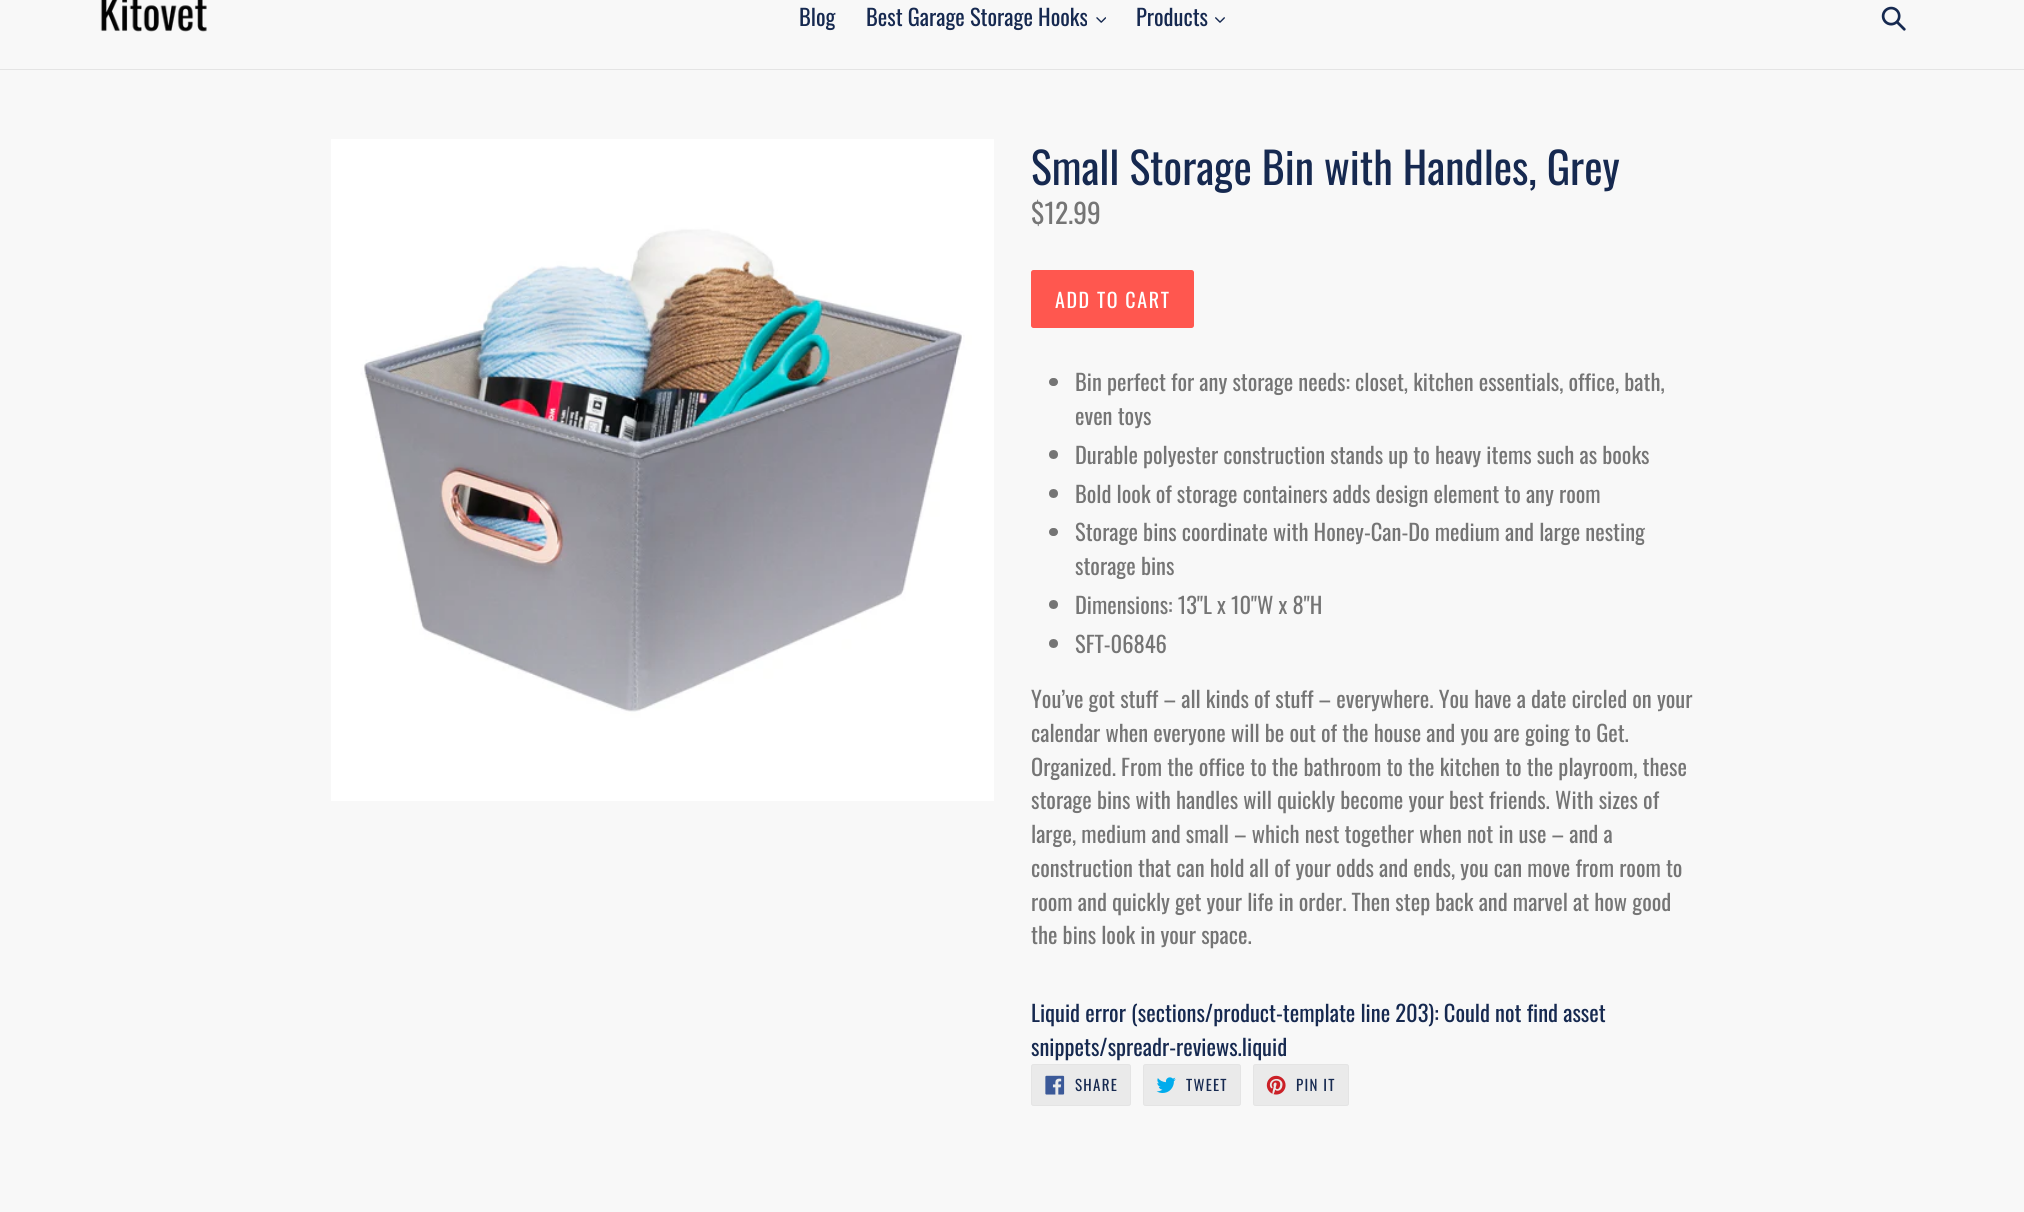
#include <cairo/cairo.h>
#include <math.h>
#include <stddef.h>

static cairo_t *cr;

static void use_color(int r, int g, int b) {
  cairo_set_source_rgb(cr, r / 255.0, g / 255.0, b / 255.0);
}

static void text(double x, double y, const char *s, const char *family, double size, int italic, int bold, int r, int g, int b) {
  cairo_select_font_face(cr, family, italic ? CAIRO_FONT_SLANT_ITALIC : CAIRO_FONT_SLANT_NORMAL,
    bold ? CAIRO_FONT_WEIGHT_BOLD : CAIRO_FONT_WEIGHT_NORMAL);
  cairo_set_font_size(cr, size);
  use_color(r, g, b);
  cairo_move_to(cr, x, y);
  cairo_show_text(cr, s);
}

static void spaced_text(double x, double y, const char *s, double letter, double word) {
  cairo_move_to(cr, x, y);
  while (*s) {
    char ch[5] = {0};
    int n = 0;
    do ch[n++] = *s++; while ((*s & 0xC0) == 0x80);
    cairo_show_text(cr, ch);
    cairo_rel_move_to(cr, letter + word * (*ch == ' '), 0);
  }
}

static void box(double x, double y, double w, double h, int r, int g, int b) {
  use_color(r, g, b);
  cairo_rectangle(cr, x, y, w, h);
  cairo_fill(cr);
}

static void round_rect(double x, double y, double w, double h, double r) {
  cairo_new_sub_path(cr);
  cairo_arc(cr, x + w - r, y + h - r, r, 0, M_PI / 2);
  cairo_arc(cr, x + r, y + h - r, r, M_PI / 2, M_PI);
  cairo_arc(cr, x + r, y + r, r, M_PI, 1.5 * M_PI);
  cairo_arc(cr, x + w - r, y + r, r, 1.5 * M_PI, 2 * M_PI);
  cairo_close_path(cr);
}

static void picture(const char *path, double x, double y, double w, double h) {
  cairo_surface_t *image = cairo_image_surface_create_from_png(path);
  cairo_save(cr);
  cairo_set_source_surface(cr, image, x, y);
  cairo_rectangle(cr, x, y, w, h);
  cairo_fill(cr);
  cairo_restore(cr);
  cairo_surface_destroy(image);
}

static void draw(void) {
  use_color(248, 248, 248);
  cairo_paint(cr);
  box(0, 69, 2024, 1, 228, 228, 228);
  picture("img_01.png", 100, 0, 107, 32);
  picture("img_02.png", 1096, 17, 10, 6);
  picture("img_03.png", 1215, 17, 10, 6);
  picture("img_04.png", 1881, 6, 25, 25);
  picture("img_05.png", 331, 139, 663, 662);
  use_color(255, 87, 79);
  round_rect(1031, 270, 163, 58, 2.5);
  cairo_fill(cr);
  use_color(117, 117, 117);
  round_rect(1049, 378, 9, 8, 4);
  cairo_fill(cr);
  cairo_arc(cr, 1053.5, 454.5, 4.5, 0, 2 * M_PI);
  cairo_fill(cr);
  cairo_arc(cr, 1053.5, 493.5, 4.5, 0, 2 * M_PI);
  cairo_fill(cr);
  round_rect(1049, 528, 9, 8, 4);
  cairo_fill(cr);
  cairo_arc(cr, 1053.5, 604.5, 4.5, 0, 2 * M_PI);
  cairo_fill(cr);
  cairo_arc(cr, 1053.5, 643.5, 4.5, 0, 2 * M_PI);
  cairo_fill(cr);
  use_color(234, 234, 234);
  round_rect(1031.5, 1064.5, 99, 41, 2);
  cairo_fill_preserve(cr);
  use_color(228, 228, 228);
  cairo_set_line_width(cr, 1);
  cairo_stroke(cr);
  picture("img_06.png", 1045, 1075, 20, 20);
  use_color(234, 234, 234);
  round_rect(1143.5, 1064.5, 97, 41, 2);
  cairo_fill_preserve(cr);
  use_color(228, 228, 228);
  cairo_stroke(cr);
  picture("img_07.png", 1156, 1077, 20, 16);
  use_color(234, 234, 234);
  round_rect(1253.5, 1064.5, 95, 41, 2);
  cairo_fill_preserve(cr);
  use_color(228, 228, 228);
  cairo_stroke(cr);
  picture("img_08.png", 1266, 1075, 20, 20);
  text(799, 26, "Blog", "Oswald", 22.5, 0, 0, 22, 41, 80);
  text(866, 26, "Best Garage Storage Hooks", "Oswald", 22.5, 0, 0, 22, 41, 80);
  text(1136, 26, "Products", "Oswald", 22.5, 0, 0, 22, 41, 80);
  text(1031, 185, "Small Storage Bin with Handles, Grey", "Oswald", 43.75, 0, 0, 22, 41, 80);
  text(1031, 224, "$12.99", "Oswald", 27.5, 0, 0, 117, 117, 117);
  cairo_set_font_size(cr, 20);
  use_color(255, 255, 255);
  spaced_text(1055, 308, "ADD TO CART", 1.6, 0);
  text(1075, 391, "Bin perfect for any storage needs: closet, kitchen essentials, office, bath,", "Oswald", 22.5, 0, 0, 117, 117, 117);
  text(1075, 425, "even toys", "Oswald", 22.5, 0, 0, 117, 117, 117);
  text(1075, 464, "Durable polyester construction stands up to heavy items such as books", "Oswald", 22.5, 0, 0, 117, 117, 117);
  text(1075, 503, "Bold look of storage containers adds design element to any room", "Oswald", 22.5, 0, 0, 117, 117, 117);
  text(1075, 541, "Storage bins coordinate with Honey-Can-Do medium and large nesting", "Oswald", 22.5, 0, 0, 117, 117, 117);
  text(1075, 575, "storage bins", "Oswald", 22.5, 0, 0, 117, 117, 117);
  text(1075, 614, "Dimensions: 13\"L x 10\"W x 8\"H", "Oswald", 22.5, 0, 0, 117, 117, 117);
  text(1075, 653, "SFT-06846", "Oswald", 22.5, 0, 0, 117, 117, 117);
  text(1031, 708, "You’ve got stuff – all kinds of stuff – everywhere. You have a date circled on your", "Oswald", 22.5, 0, 0, 117, 117, 117);
  text(1031, 742, "calendar when everyone will be out of the house and you are going to Get.", "Oswald", 22.5, 0, 0, 117, 117, 117);
  text(1031, 776, "Organized. From the office to the bathroom to the kitchen to the playroom, these", "Oswald", 22.5, 0, 0, 117, 117, 117);
  text(1031, 809, "storage bins with handles will quickly become your best friends. With sizes of", "Oswald", 22.5, 0, 0, 117, 117, 117);
  text(1031, 843, "large, medium and small – which nest together when not in use – and a", "Oswald", 22.5, 0, 0, 117, 117, 117);
  text(1031, 877, "construction that can hold all of your odds and ends, you can move from room to", "Oswald", 22.5, 0, 0, 117, 117, 117);
  text(1031, 911, "room and quickly get your life in order. Then step back and marvel at how good", "Oswald", 22.5, 0, 0, 117, 117, 117);
  text(1031, 944, "the bins look in your space.", "Oswald", 22.5, 0, 0, 117, 117, 117);
  text(1031, 1022, "Liquid error (sections/product-template line 203): Could not find asset", "Oswald", 22.5, 0, 0, 22, 41, 80);
  text(1031, 1056, "snippets/spreadr-reviews.liquid", "Oswald", 22.5, 0, 0, 22, 41, 80);
  cairo_set_font_size(cr, 15);
  spaced_text(1075, 1091, "SHARE", 1.25, 0);
  spaced_text(1186, 1091, "TWEET", 1.25, 0);
  spaced_text(1296, 1091, "PIN IT", 1.25, 0);
}

int main(void) {
  cairo_surface_t *surface = cairo_image_surface_create(CAIRO_FORMAT_RGB24, 2024, 1212);
  cr = cairo_create(surface);
  cairo_font_options_t *options = cairo_font_options_create();
  cairo_font_options_set_hint_metrics(options, CAIRO_HINT_METRICS_OFF);
  cairo_font_options_set_hint_style(options, CAIRO_HINT_STYLE_NONE);
  cairo_set_font_options(cr, options);
  cairo_set_miter_limit(cr, 4);
  draw();
  cairo_surface_write_to_png(surface, "out.png");
  cairo_font_options_destroy(options);
  cairo_destroy(cr);
  cairo_surface_destroy(surface);
  return 0;
}
